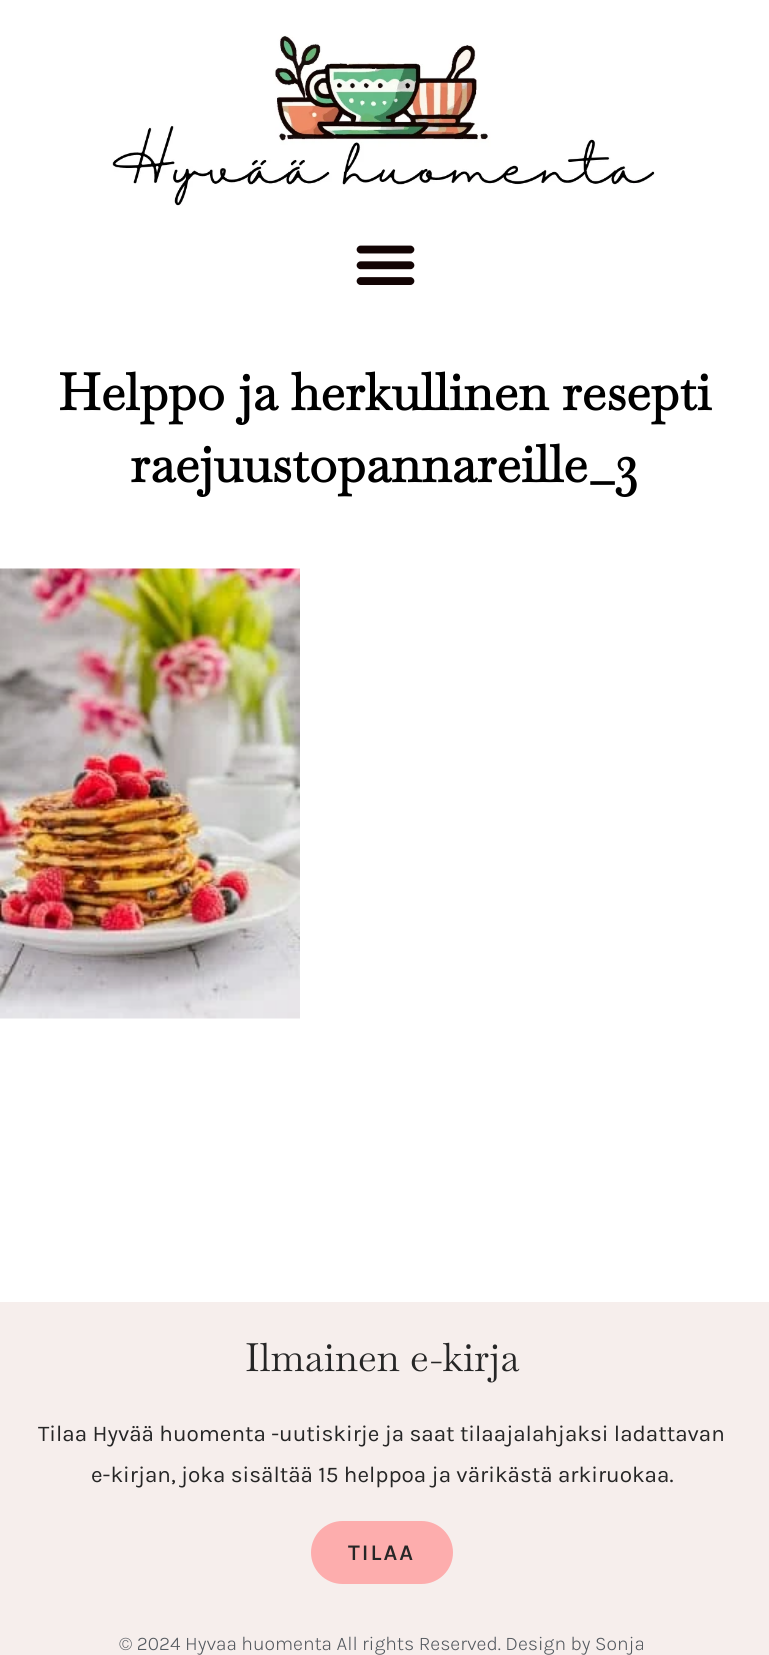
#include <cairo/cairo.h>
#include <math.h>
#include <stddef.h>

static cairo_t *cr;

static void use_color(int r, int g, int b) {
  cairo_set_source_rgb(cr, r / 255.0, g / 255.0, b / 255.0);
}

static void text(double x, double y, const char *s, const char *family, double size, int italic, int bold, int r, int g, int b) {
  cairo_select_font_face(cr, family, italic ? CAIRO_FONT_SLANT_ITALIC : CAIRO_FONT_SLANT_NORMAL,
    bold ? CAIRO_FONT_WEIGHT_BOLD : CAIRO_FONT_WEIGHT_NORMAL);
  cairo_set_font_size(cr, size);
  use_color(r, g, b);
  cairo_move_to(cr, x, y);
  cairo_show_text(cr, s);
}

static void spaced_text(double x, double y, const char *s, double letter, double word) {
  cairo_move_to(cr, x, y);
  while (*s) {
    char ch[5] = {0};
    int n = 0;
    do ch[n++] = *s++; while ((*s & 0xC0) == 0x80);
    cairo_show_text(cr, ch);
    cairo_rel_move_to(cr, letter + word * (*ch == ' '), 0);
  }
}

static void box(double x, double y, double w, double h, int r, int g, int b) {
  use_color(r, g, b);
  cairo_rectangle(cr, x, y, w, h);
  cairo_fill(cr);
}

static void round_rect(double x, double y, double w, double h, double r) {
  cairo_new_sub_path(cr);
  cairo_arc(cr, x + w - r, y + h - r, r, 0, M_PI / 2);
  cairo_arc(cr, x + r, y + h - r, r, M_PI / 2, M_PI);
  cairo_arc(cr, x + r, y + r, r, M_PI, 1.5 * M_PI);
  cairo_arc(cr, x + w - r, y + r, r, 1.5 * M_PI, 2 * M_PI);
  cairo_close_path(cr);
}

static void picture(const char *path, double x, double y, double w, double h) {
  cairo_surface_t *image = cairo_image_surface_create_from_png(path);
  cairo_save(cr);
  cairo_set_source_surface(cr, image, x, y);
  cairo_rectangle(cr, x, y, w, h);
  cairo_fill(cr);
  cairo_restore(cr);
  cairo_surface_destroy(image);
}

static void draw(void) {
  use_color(255, 255, 255);
  cairo_paint(cr);
  picture("img_01.png", 112, 35, 543, 171);
  picture("img_02.png", 356, 245, 59, 40);
  picture("img_03.png", 0, 568, 300, 451);
  box(0, 1302, 769, 353, 246, 238, 236);
  use_color(253, 173, 173);
  round_rect(311, 1521, 142, 63, 31.5);
  cairo_fill(cr);
  text(58, 410, "Helppo ja herkullinen resepti", "Baskervville", 51, 0, 1, 0, 0, 0);
  text(130, 482, "raejuustopannareille_3", "Baskervville", 51, 0, 1, 0, 0, 0);
  text(245, 1371, "Ilmainen e-kirja", "Baskervville", 39, 0, 0, 38, 38, 38);
  text(38, 1441, "Tilaa Hyvää huomenta -uutiskirje ja saat tilaajalahjaksi ladattavan", "Karla", 22.5, 0, 0, 38, 38, 38);
  text(91, 1482, "e-kirjan, joka sisältää 15 helppoa ja värikästä arkiruokaa.", "Karla", 22.5, 0, 0, 38, 38, 38);
  cairo_select_font_face(cr, "Karla SemiBold", CAIRO_FONT_SLANT_NORMAL, CAIRO_FONT_WEIGHT_NORMAL);
  spaced_text(348, 1560, "TILAA", 2, 0);
  text(119, 1650, "© 2024 Hyvaa huomenta All rights Reserved. Design by Sonja", "Karla Light", 19.5, 0, 0, 84, 89, 95);
}

int main(void) {
  cairo_surface_t *surface = cairo_image_surface_create(CAIRO_FORMAT_RGB24, 769, 1655);
  cr = cairo_create(surface);
  cairo_font_options_t *options = cairo_font_options_create();
  cairo_font_options_set_hint_metrics(options, CAIRO_HINT_METRICS_OFF);
  cairo_font_options_set_hint_style(options, CAIRO_HINT_STYLE_NONE);
  cairo_set_font_options(cr, options);
  cairo_set_miter_limit(cr, 4);
  draw();
  cairo_surface_write_to_png(surface, "out.png");
  cairo_font_options_destroy(options);
  cairo_destroy(cr);
  cairo_surface_destroy(surface);
  return 0;
}
